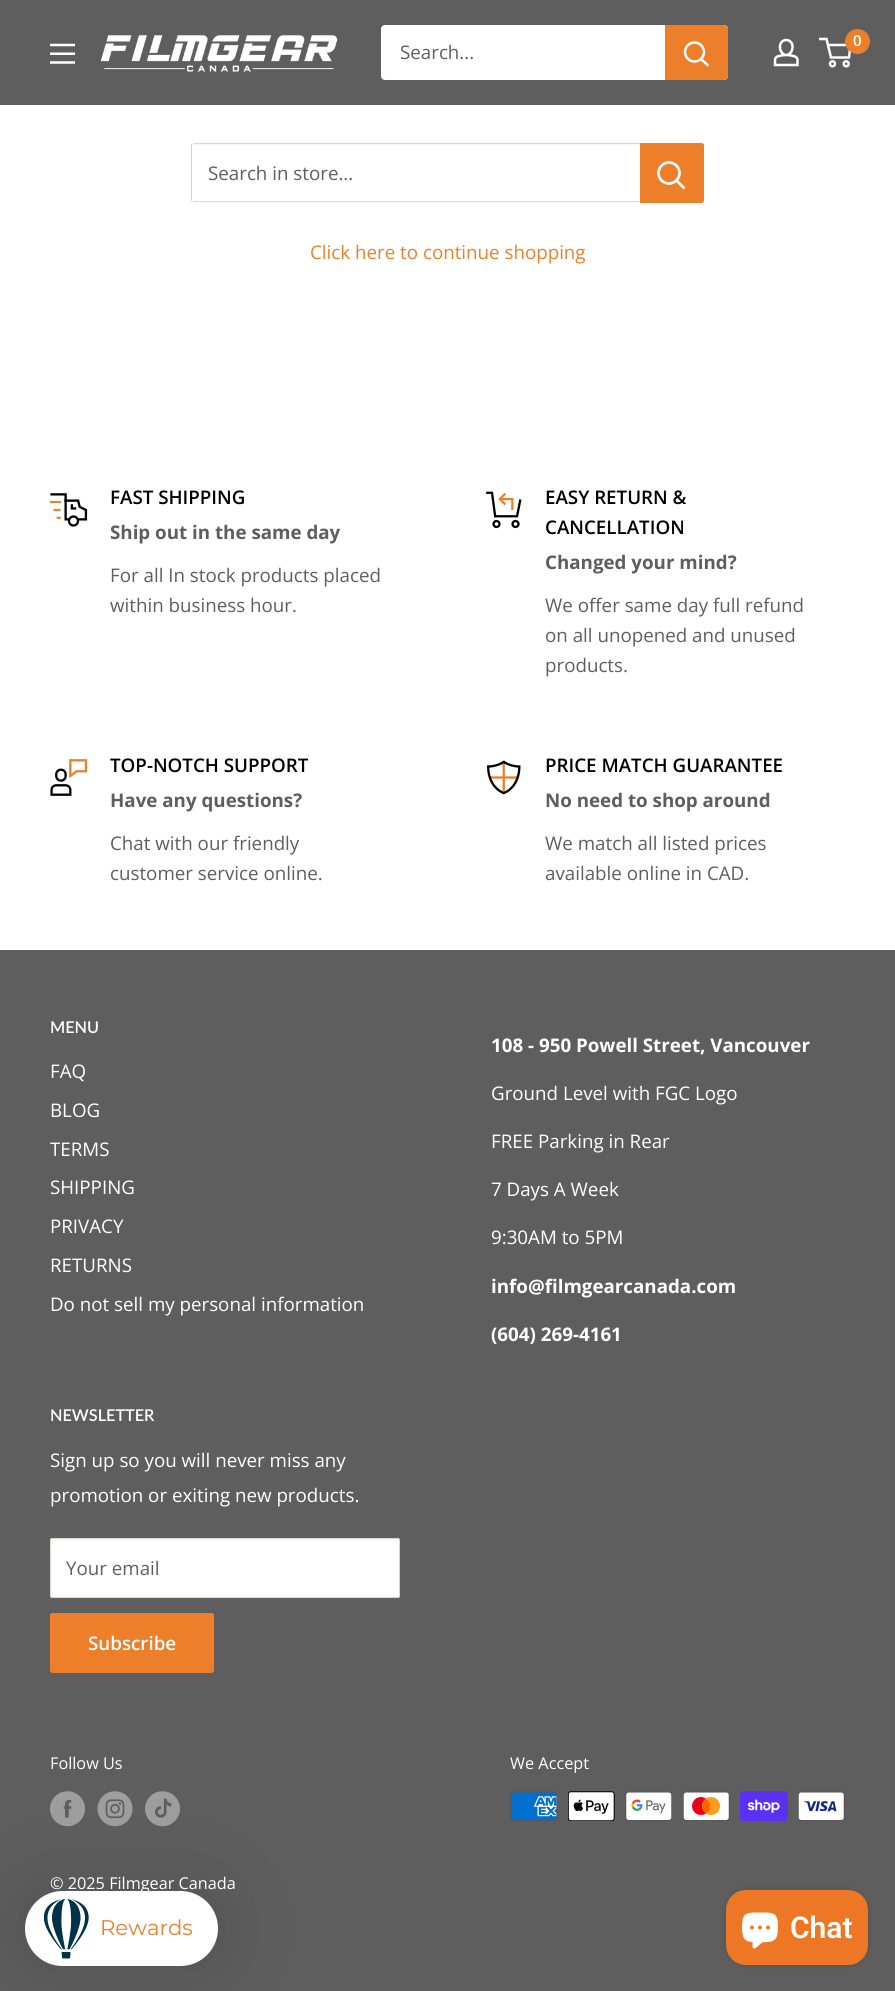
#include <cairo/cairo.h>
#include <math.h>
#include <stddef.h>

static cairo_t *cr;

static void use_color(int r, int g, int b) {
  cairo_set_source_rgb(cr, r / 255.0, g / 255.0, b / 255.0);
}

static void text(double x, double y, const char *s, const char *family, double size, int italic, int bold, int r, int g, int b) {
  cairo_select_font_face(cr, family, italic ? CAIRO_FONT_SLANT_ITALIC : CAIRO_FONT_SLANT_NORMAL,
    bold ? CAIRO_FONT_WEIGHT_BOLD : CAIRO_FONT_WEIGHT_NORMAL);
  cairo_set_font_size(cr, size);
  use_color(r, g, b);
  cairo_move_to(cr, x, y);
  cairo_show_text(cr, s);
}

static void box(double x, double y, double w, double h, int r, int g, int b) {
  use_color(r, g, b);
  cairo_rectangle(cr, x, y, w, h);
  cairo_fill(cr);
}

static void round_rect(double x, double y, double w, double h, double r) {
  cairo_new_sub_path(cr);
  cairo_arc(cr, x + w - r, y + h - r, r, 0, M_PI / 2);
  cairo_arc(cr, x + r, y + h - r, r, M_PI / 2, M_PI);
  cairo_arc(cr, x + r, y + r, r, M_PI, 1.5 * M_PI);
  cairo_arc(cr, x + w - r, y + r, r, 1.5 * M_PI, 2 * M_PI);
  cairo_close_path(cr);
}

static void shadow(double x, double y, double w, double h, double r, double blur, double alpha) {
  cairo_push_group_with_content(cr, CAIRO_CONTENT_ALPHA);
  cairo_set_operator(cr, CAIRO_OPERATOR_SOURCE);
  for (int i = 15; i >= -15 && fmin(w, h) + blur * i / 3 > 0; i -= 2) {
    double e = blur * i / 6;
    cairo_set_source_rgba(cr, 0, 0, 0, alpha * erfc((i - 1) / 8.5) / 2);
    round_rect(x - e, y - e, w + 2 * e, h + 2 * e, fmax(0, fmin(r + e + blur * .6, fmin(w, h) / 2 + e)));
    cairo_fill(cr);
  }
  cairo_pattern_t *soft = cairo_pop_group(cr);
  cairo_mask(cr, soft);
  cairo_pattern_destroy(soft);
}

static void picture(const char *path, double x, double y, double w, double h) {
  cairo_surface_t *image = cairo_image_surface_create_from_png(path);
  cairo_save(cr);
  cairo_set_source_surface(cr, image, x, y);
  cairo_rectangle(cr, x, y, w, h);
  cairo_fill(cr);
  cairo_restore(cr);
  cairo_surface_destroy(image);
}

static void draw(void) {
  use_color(255, 255, 255);
  cairo_paint(cr);
  box(0, 0, 895, 105, 94, 94, 94);
  picture("img_01.png", 100, 35, 238, 37);
  picture("img_02.png", 773, 38, 26, 29);
  cairo_arc(cr, 832.5, 63.8, 2.5, 0, 2 * M_PI);
  use_color(255, 255, 255);
  cairo_set_line_width(cr, 2.5);
  cairo_stroke(cr);
  cairo_arc(cr, 846.2, 63.8, 2.5, 0, 2 * M_PI);
  cairo_stroke(cr);
  cairo_new_path(cr);
  cairo_move_to(cr, 828, 45);
  cairo_line_to(cr, 850.5, 45);
  cairo_line_to(cr, 849, 57.5);
  cairo_line_to(cr, 831, 57.5);
  cairo_line_to(cr, 826.5, 39);
  cairo_line_to(cr, 819, 39);
  cairo_stroke(cr);
  use_color(238, 127, 42);
  cairo_arc(cr, 857.5, 41.5, 12.5, 0, 2 * M_PI);
  cairo_fill(cr);
  picture("img_03.png", 50, 43, 25, 21);
  use_color(255, 255, 255);
  round_rect(381, 25, 347, 55, 4);
  cairo_fill(cr);
  use_color(238, 127, 42);
  cairo_new_path(cr);
  cairo_move_to(cr, 665, 25);
  cairo_line_to(cr, 724, 25);
  cairo_curve_to(cr, 726, 25, 728, 27, 728, 29);
  cairo_line_to(cr, 728, 76);
  cairo_curve_to(cr, 728, 78, 726, 80, 724, 80);
  cairo_line_to(cr, 665, 80);
  cairo_close_path(cr);
  cairo_fill(cr);
  cairo_new_path(cr);
  cairo_move_to(cr, 707.5, 65);
  cairo_line_to(cr, 701, 59);
  use_color(255, 255, 255);
  cairo_set_line_cap(cr, CAIRO_LINE_CAP_SQUARE);
  cairo_stroke(cr);
  cairo_arc(cr, 694.5, 52, 9.5, 0, 2 * M_PI);
  cairo_set_line_cap(cr, CAIRO_LINE_CAP_BUTT);
  cairo_stroke(cr);
  use_color(249, 248, 247);
  cairo_new_path(cr);
  cairo_move_to(cr, 194, 145);
  cairo_line_to(cr, 640, 145);
  cairo_line_to(cr, 640, 144);
  cairo_line_to(cr, 194, 144);
  cairo_line_to(cr, 193, 145);
  cairo_close_path(cr);
  cairo_fill(cr);
  box(193, 143, 447, 1, 220, 213, 207);
  box(193, 201, 447, 1, 220, 213, 207);
  box(191, 144, 1, 57, 220, 213, 207);
  use_color(238, 127, 42);
  cairo_new_path(cr);
  cairo_move_to(cr, 640, 143);
  cairo_line_to(cr, 701.5, 143);
  cairo_curve_to(cr, 703, 143, 704, 144, 704, 145.5);
  cairo_line_to(cr, 704, 200.5);
  cairo_curve_to(cr, 704, 202, 703, 203, 701.5, 203);
  cairo_line_to(cr, 640, 203);
  cairo_close_path(cr);
  cairo_fill(cr);
  cairo_new_path(cr);
  cairo_move_to(cr, 683.5, 187.5);
  cairo_line_to(cr, 676.5, 180.5);
  use_color(255, 255, 255);
  cairo_set_line_width(cr, 2.7);
  cairo_set_line_cap(cr, CAIRO_LINE_CAP_SQUARE);
  cairo_stroke(cr);
  cairo_arc(cr, 669, 173, 10.5, 0, 2 * M_PI);
  cairo_set_line_cap(cr, CAIRO_LINE_CAP_BUTT);
  cairo_stroke(cr);
  picture("img_04.png", 50, 493, 38, 34);
  picture("img_05.png", 486, 491, 36, 38);
  picture("img_06.png", 50, 759, 38, 37);
  picture("img_07.png", 487, 760, 34, 35);
  box(0, 950, 895, 1041, 94, 94, 94);
  use_color(255, 255, 255);
  round_rect(50, 1538, 350, 60, 2.5);
  cairo_fill(cr);
  use_color(249, 248, 247);
  cairo_new_path(cr);
  cairo_move_to(cr, 52, 1540);
  cairo_line_to(cr, 398, 1540);
  cairo_line_to(cr, 399, 1541);
  cairo_line_to(cr, 399, 1540);
  cairo_line_to(cr, 398, 1539);
  cairo_line_to(cr, 51, 1539);
  cairo_line_to(cr, 51, 1541);
  cairo_close_path(cr);
  cairo_fill(cr);
  round_rect(50.5, 1538.5, 349, 59, 2);
  use_color(220, 213, 207);
  cairo_set_line_width(cr, 1);
  cairo_stroke(cr);
  use_color(238, 127, 42);
  round_rect(50, 1613, 164, 60, 2.5);
  cairo_fill(cr);
  picture("img_08.png", 50, 1791, 35, 36);
  picture("img_09.png", 97, 1791, 36, 36);
  picture("img_10.png", 145, 1791, 35, 36);
  picture("img_11.png", 510, 1791, 47, 30);
  picture("img_12.png", 568, 1791, 47, 30);
  picture("img_13.png", 625, 1791, 47, 30);
  picture("img_14.png", 683, 1791, 47, 30);
  picture("img_15.png", 740, 1791, 48, 30);
  picture("img_16.png", 798, 1791, 47, 30);
  use_color(0, 0, 0);
  shadow(25, 1891, 193, 75, 37.5, 50, 0.12);
  use_color(255, 255, 255);
  round_rect(25, 1891, 193, 75, 37.5);
  cairo_fill(cr);
  picture("img_17.png", 44, 1899, 45, 60);
  use_color(0, 0, 0);
  shadow(726, 1890, 142, 75, 20, 3, 0.15);
  use_color(237, 119, 36);
  round_rect(726, 1890, 142, 75, 20);
  cairo_fill(cr);
  picture("img_18.png", 742, 1912, 36, 37);
  text(853, 46, "0", "Open Sans SemiBold", 15, 0, 0, 255, 255, 255);
  text(400, 59, "Search...", "Open Sans", 18.75, 0, 0, 94, 94, 94);
  text(208, 180, "Search in store...", "Open Sans", 18.75, 0, 0, 94, 94, 94);
  text(310, 259, "Click here to continue shopping", "Open Sans", 18.75, 0, 0, 238, 127, 42);
  text(110, 504, "FAST SHIPPING", "Open Sans SemiBold", 18.75, 0, 0, 0, 0, 0);
  text(110, 539, "Ship out in the same day", "Open Sans", 18.75, 0, 1, 94, 94, 94);
  text(110, 582, "For all In stock products placed", "Open Sans", 18.75, 0, 0, 94, 94, 94);
  text(110, 612, "within business hour.", "Open Sans", 18.75, 0, 0, 94, 94, 94);
  text(545, 504, "EASY RETURN &", "Open Sans SemiBold", 18.75, 0, 0, 0, 0, 0);
  text(545, 534, "CANCELLATION", "Open Sans SemiBold", 18.75, 0, 0, 0, 0, 0);
  text(545, 569, "Changed your mind?", "Open Sans", 18.75, 0, 1, 94, 94, 94);
  text(545, 612, "We offer same day full refund", "Open Sans", 18.75, 0, 0, 94, 94, 94);
  text(545, 642, "on all unopened and unused", "Open Sans", 18.75, 0, 0, 94, 94, 94);
  text(545, 672, "products.", "Open Sans", 18.75, 0, 0, 94, 94, 94);
  text(110, 772, "TOP-NOTCH SUPPORT", "Open Sans SemiBold", 18.75, 0, 0, 0, 0, 0);
  text(110, 807, "Have any questions?", "Open Sans", 18.75, 0, 1, 94, 94, 94);
  text(110, 850, "Chat with our friendly", "Open Sans", 18.75, 0, 0, 94, 94, 94);
  text(110, 880, "customer service online.", "Open Sans", 18.75, 0, 0, 94, 94, 94);
  text(545, 772, "PRICE MATCH GUARANTEE", "Open Sans SemiBold", 18.75, 0, 0, 0, 0, 0);
  text(545, 807, "No need to shop around", "Open Sans", 18.75, 0, 1, 94, 94, 94);
  text(545, 850, "We match all listed prices", "Open Sans", 18.75, 0, 0, 94, 94, 94);
  text(545, 880, "available online in CAD.", "Open Sans", 18.75, 0, 0, 94, 94, 94);
  text(50, 1033, "MENU", "Lato SemiBold", 16.25, 0, 0, 255, 255, 255);
  text(50, 1078, "FAQ", "Open Sans", 18.75, 0, 0, 255, 255, 255);
  text(50, 1117, "BLOG", "Open Sans", 18.75, 0, 0, 255, 255, 255);
  text(50, 1156, "TERMS", "Open Sans", 18.75, 0, 0, 255, 255, 255);
  text(50, 1194, "SHIPPING", "Open Sans", 18.75, 0, 0, 255, 255, 255);
  text(50, 1233, "PRIVACY", "Open Sans", 18.75, 0, 0, 255, 255, 255);
  text(50, 1272, "RETURNS", "Open Sans", 18.75, 0, 0, 255, 255, 255);
  text(50, 1311, "Do not sell my personal information", "Open Sans", 18.75, 0, 0, 255, 255, 255);
  text(491, 1052, "108 - 950 Powell Street, Vancouver", "Open Sans", 18.75, 0, 1, 255, 255, 255);
  text(491, 1100, "Ground Level with FGC Logo", "Open Sans", 18.75, 0, 0, 255, 255, 255);
  text(491, 1148, "FREE Parking in Rear", "Open Sans", 18.75, 0, 0, 255, 255, 255);
  text(491, 1196, "7 Days A Week", "Open Sans", 18.75, 0, 0, 255, 255, 255);
  text(491, 1244, "9:30AM to 5PM", "Open Sans", 18.75, 0, 0, 255, 255, 255);
  text(491, 1293, "info@filmgearcanada.com", "Open Sans", 18.75, 0, 1, 255, 255, 255);
  text(491, 1341, "(604) 269-4161", "Open Sans", 18.75, 0, 1, 255, 255, 255);
  text(50, 1421, "NEWSLETTER", "Lato SemiBold", 16.25, 0, 0, 255, 255, 255);
  text(50, 1467, "Sign up so you will never miss any", "Open Sans", 18.75, 0, 0, 255, 255, 255);
  text(50, 1502, "promotion or exiting new products.", "Open Sans", 18.75, 0, 0, 255, 255, 255);
  text(66, 1575, "Your email", "Open Sans", 18.75, 0, 0, 94, 94, 94);
  text(88, 1650, "Subscribe", "Open Sans SemiBold", 18.75, 0, 0, 255, 255, 255);
  text(50, 1769, "Follow Us", "Open Sans", 16.25, 0, 0, 255, 255, 255);
  text(510, 1769, "We Accept", "Open Sans", 16.25, 0, 0, 255, 255, 255);
  text(50, 1889, "© 2025 Filmgear Canada", "Open Sans", 16.25, 0, 0, 255, 255, 255);
  text(100, 1935, "Rewards", "Montserrat", 21.25, 0, 0, 238, 127, 42);
  text(790, 1938, "Chat", "Roboto SemiBold", 30, 0, 0, 255, 255, 255);
}

int main(void) {
  cairo_surface_t *surface = cairo_image_surface_create(CAIRO_FORMAT_RGB24, 895, 1991);
  cr = cairo_create(surface);
  cairo_font_options_t *options = cairo_font_options_create();
  cairo_font_options_set_hint_metrics(options, CAIRO_HINT_METRICS_OFF);
  cairo_font_options_set_hint_style(options, CAIRO_HINT_STYLE_NONE);
  cairo_set_font_options(cr, options);
  cairo_set_miter_limit(cr, 4);
  draw();
  cairo_surface_write_to_png(surface, "out.png");
  cairo_font_options_destroy(options);
  cairo_destroy(cr);
  cairo_surface_destroy(surface);
  return 0;
}
